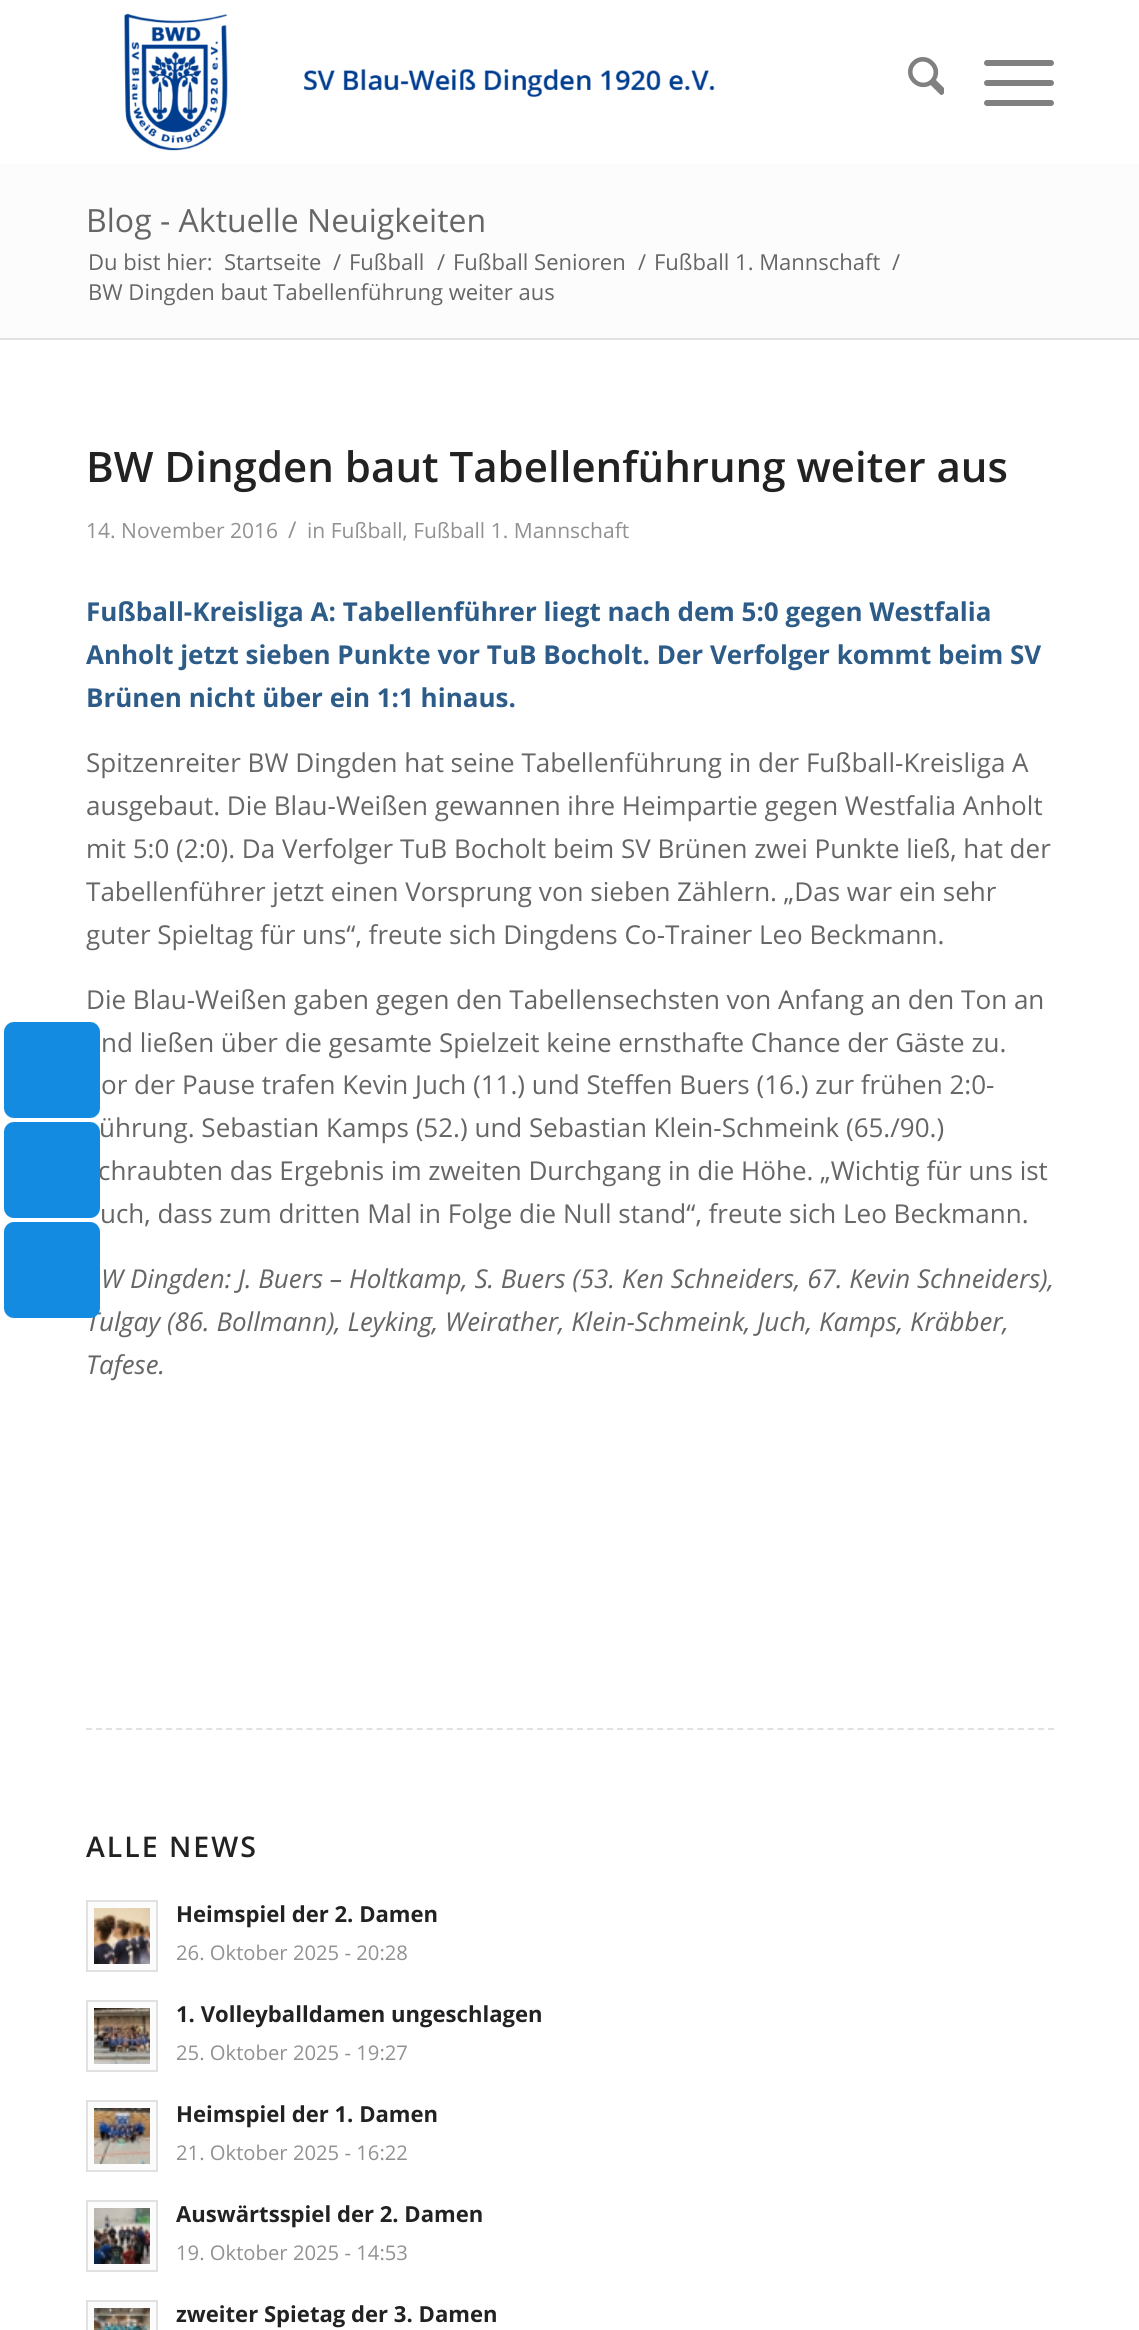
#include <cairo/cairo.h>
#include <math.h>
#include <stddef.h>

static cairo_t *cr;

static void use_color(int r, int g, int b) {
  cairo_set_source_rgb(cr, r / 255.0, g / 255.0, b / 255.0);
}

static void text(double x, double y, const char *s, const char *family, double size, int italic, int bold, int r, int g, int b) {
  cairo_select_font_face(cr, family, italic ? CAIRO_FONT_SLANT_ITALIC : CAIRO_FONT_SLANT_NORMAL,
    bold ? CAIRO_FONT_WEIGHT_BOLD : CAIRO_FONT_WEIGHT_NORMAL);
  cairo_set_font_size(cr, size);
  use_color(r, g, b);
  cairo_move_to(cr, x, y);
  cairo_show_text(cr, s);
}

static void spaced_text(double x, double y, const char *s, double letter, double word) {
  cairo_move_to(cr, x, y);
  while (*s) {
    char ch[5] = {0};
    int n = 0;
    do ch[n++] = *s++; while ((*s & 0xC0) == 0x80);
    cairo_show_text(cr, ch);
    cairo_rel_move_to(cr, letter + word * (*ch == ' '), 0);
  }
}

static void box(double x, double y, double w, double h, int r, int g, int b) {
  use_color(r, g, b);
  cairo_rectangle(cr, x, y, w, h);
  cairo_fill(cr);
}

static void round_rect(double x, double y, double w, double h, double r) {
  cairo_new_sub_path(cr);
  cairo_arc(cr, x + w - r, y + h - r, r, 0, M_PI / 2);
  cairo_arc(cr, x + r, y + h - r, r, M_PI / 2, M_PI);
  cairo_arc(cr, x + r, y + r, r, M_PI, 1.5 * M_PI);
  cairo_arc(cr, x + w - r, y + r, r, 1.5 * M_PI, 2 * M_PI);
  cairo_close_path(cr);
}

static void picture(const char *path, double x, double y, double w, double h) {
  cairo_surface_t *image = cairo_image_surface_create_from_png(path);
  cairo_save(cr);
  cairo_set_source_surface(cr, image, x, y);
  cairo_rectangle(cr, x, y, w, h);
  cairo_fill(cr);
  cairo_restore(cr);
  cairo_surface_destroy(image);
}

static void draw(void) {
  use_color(255, 255, 255);
  cairo_paint(cr);
  use_color(18, 139, 224);
  round_rect(4, 1022, 96, 96, 10);
  cairo_fill(cr);
  picture("img_01.png", 124, 13, 591, 138);
  picture("img_02.png", 908, 57, 36, 38);
  use_color(128, 128, 128);
  round_rect(984, 80, 70, 6, 3);
  cairo_fill(cr);
  round_rect(984, 60, 70, 6, 3);
  cairo_fill(cr);
  round_rect(984, 100, 70, 6, 3);
  cairo_fill(cr);
  box(0, 164, 1139, 174, 252, 252, 252);
  box(0, 338, 1139, 2, 225, 225, 225);
  cairo_new_path(cr);
  cairo_move_to(cr, 86, 1729);
  cairo_line_to(cr, 1054, 1729);
  cairo_set_dash(cr, (double[]){6, 4.02}, 2, 0);
  cairo_stroke(cr);
  use_color(252, 252, 252);
  cairo_rectangle(cr, 87, 1901, 70, 70);
  cairo_fill_preserve(cr);
  use_color(225, 225, 225);
  cairo_set_dash(cr, NULL, 0, 0);
  cairo_stroke(cr);
  picture("img_03.png", 94, 1908, 56, 56);
  use_color(252, 252, 252);
  cairo_rectangle(cr, 87, 2001, 70, 70);
  cairo_fill_preserve(cr);
  use_color(225, 225, 225);
  cairo_stroke(cr);
  picture("img_04.png", 94, 2008, 56, 56);
  use_color(252, 252, 252);
  cairo_rectangle(cr, 87, 2101, 70, 70);
  cairo_fill_preserve(cr);
  use_color(225, 225, 225);
  cairo_stroke(cr);
  picture("img_05.png", 94, 2108, 56, 56);
  use_color(252, 252, 252);
  cairo_rectangle(cr, 87, 2201, 70, 70);
  cairo_fill_preserve(cr);
  use_color(225, 225, 225);
  cairo_stroke(cr);
  picture("img_06.png", 94, 2208, 56, 56);
  use_color(252, 252, 252);
  cairo_rectangle(cr, 87, 2301, 70, 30);
  cairo_fill_preserve(cr);
  use_color(225, 225, 225);
  cairo_stroke(cr);
  picture("img_07.png", 94, 2308, 56, 22);
  text(86, 232, "Blog - Aktuelle Neuigkeiten", "Open Sans", 32, 0, 0, 102, 102, 102);
  text(88, 270, "Du bist hier:", "Open Sans", 22, 0, 0, 102, 102, 102);
  text(224, 270, "Startseite", "Open Sans", 22, 0, 0, 102, 102, 102);
  text(333, 270, "/", "Open Sans", 22, 0, 0, 102, 102, 102);
  text(349, 270, "Fußball", "Open Sans", 22, 0, 0, 102, 102, 102);
  text(437, 270, "/", "Open Sans", 22, 0, 0, 102, 102, 102);
  text(453, 270, "Fußball Senioren", "Open Sans", 22, 0, 0, 102, 102, 102);
  text(638, 270, "/", "Open Sans", 22, 0, 0, 102, 102, 102);
  text(654, 270, "Fußball 1. Mannschaft", "Open Sans", 22, 0, 0, 102, 102, 102);
  text(892, 270, "/", "Open Sans", 22, 0, 0, 102, 102, 102);
  text(88, 300, "BW Dingden baut Tabellenführung weiter aus", "Open Sans", 22, 0, 0, 102, 102, 102);
  text(86, 482, "BW Dingden baut Tabellenführung weiter aus", "Open Sans SemiBold", 42, 0, 0, 34, 34, 34);
  text(86, 538, "14. November 2016", "Open Sans", 21, 0, 0, 145, 145, 145);
  text(288, 538, "/", "Open Sans", 23, 0, 0, 145, 145, 145);
  text(307, 538, "in Fußball, Fußball 1. Mannschaft", "Open Sans", 21, 0, 0, 145, 145, 145);
  text(86, 621, "Fußball-Kreisliga A: Tabellenführer liegt nach dem 5:0 gegen Westfalia", "Open Sans", 26, 0, 1, 45, 92, 136);
  text(86, 664, "Anholt jetzt sieben Punkte vor TuB Bocholt. Der Verfolger kommt beim SV", "Open Sans", 26, 0, 1, 45, 92, 136);
  text(86, 707, "Brünen nicht über ein 1:1 hinaus.", "Open Sans", 26, 0, 1, 45, 92, 136);
  text(86, 772, "Spitzenreiter BW Dingden hat seine Tabellenführung in der Fußball-Kreisliga A", "Open Sans", 26, 0, 0, 102, 102, 102);
  text(86, 815, "ausgebaut. Die Blau-Weißen gewannen ihre Heimpartie gegen Westfalia Anholt", "Open Sans", 26, 0, 0, 102, 102, 102);
  text(86, 858, "mit 5:0 (2:0). Da Verfolger TuB Bocholt beim SV Brünen zwei Punkte ließ, hat der", "Open Sans", 26, 0, 0, 102, 102, 102);
  cairo_save(cr);
  cairo_rectangle(cr, 86, 440, 968, 1148);
  cairo_clip(cr);
  text(86, 901, "Tabellenführer jetzt einen Vorsprung von sieben Zählern. „Das war ein sehr", "Open Sans", 26, 0, 0, 102, 102, 102);
  cairo_restore(cr);
  text(86, 944, "guter Spieltag für uns“, freute sich Dingdens Co-Trainer Leo Beckmann.", "Open Sans", 26, 0, 0, 102, 102, 102);
  text(86, 1009, "Die Blau-Weißen gaben gegen den Tabellensechsten von Anfang an den Ton an", "Open Sans", 26, 0, 0, 102, 102, 102);
  text(101, 1052, "nd ließen über die gesamte Spielzeit keine ernsthafte Chance der Gäste zu.", "Open Sans", 26, 0, 0, 102, 102, 102);
  text(101, 1094, "or der Pause trafen Kevin Juch (11.) und Steffen Buers (16.) zur frühen 2:0-", "Open Sans", 26, 0, 0, 102, 102, 102);
  text(99, 1137, "ührung. Sebastian Kamps (52.) und Sebastian Klein-Schmeink (65./90.)", "Open Sans", 26, 0, 0, 102, 102, 102);
  text(98, 1180, "chraubten das Ergebnis im zweiten Durchgang in die Höhe. „Wichtig für uns ist", "Open Sans", 26, 0, 0, 102, 102, 102);
  use_color(18, 139, 224);
  round_rect(4, 1122, 96, 96, 10);
  cairo_fill(cr);
  text(100, 1223, "uch, dass zum dritten Mal in Folge die Null stand“, freute sich Leo Beckmann.", "Open Sans", 26, 0, 0, 102, 102, 102);
  text(101, 1288, "W Dingden: J. Buers – Holtkamp, S. Buers (53. Ken Schneiders, 67. Kevin Schneiders),", "Open Sans", 26, 1, 0, 102, 102, 102);
  text(86, 1331, "Tulgay (86. Bollmann), Leyking, Weirather, Klein-Schmeink, Juch, Kamps, Kräbber,", "Open Sans", 26, 1, 0, 102, 102, 102);
  use_color(18, 139, 224);
  round_rect(4, 1222, 96, 96, 10);
  cairo_fill(cr);
  text(86, 1374, "Tafese.", "Open Sans", 26, 1, 0, 102, 102, 102);
  cairo_select_font_face(cr, "Open Sans SemiBold", CAIRO_FONT_SLANT_NORMAL, CAIRO_FONT_WEIGHT_NORMAL);
  cairo_set_font_size(cr, 28.5);
  use_color(34, 34, 34);
  spaced_text(86, 1857, "ALLE NEWS", 2, 0);
  text(176, 1922, "Heimspiel der 2. Damen", "Open Sans", 22.1, 0, 1, 34, 34, 34);
  text(176, 1960, "26. Oktober 2025 - 20:28", "Open Sans", 20.25, 0, 0, 145, 145, 145);
  text(176, 2022, "1. Volleyballdamen ungeschlagen", "Open Sans", 22.1, 0, 1, 34, 34, 34);
  text(176, 2060, "25. Oktober 2025 - 19:27", "Open Sans", 20.25, 0, 0, 145, 145, 145);
  text(176, 2122, "Heimspiel der 1. Damen", "Open Sans", 22.1, 0, 1, 34, 34, 34);
  text(176, 2160, "21. Oktober 2025 - 16:22", "Open Sans", 20.25, 0, 0, 145, 145, 145);
  text(176, 2222, "Auswärtsspiel der 2. Damen", "Open Sans", 22.1, 0, 1, 34, 34, 34);
  text(176, 2260, "19. Oktober 2025 - 14:53", "Open Sans", 20.25, 0, 0, 145, 145, 145);
  text(176, 2322, "zweiter Spietag der 3. Damen", "Open Sans", 22.1, 0, 1, 34, 34, 34);
}

int main(void) {
  cairo_surface_t *surface = cairo_image_surface_create(CAIRO_FORMAT_RGB24, 1139, 2330);
  cr = cairo_create(surface);
  cairo_font_options_t *options = cairo_font_options_create();
  cairo_font_options_set_hint_metrics(options, CAIRO_HINT_METRICS_OFF);
  cairo_font_options_set_hint_style(options, CAIRO_HINT_STYLE_NONE);
  cairo_set_font_options(cr, options);
  cairo_set_miter_limit(cr, 4);
  draw();
  cairo_surface_write_to_png(surface, "out.png");
  cairo_font_options_destroy(options);
  cairo_destroy(cr);
  cairo_surface_destroy(surface);
  return 0;
}
